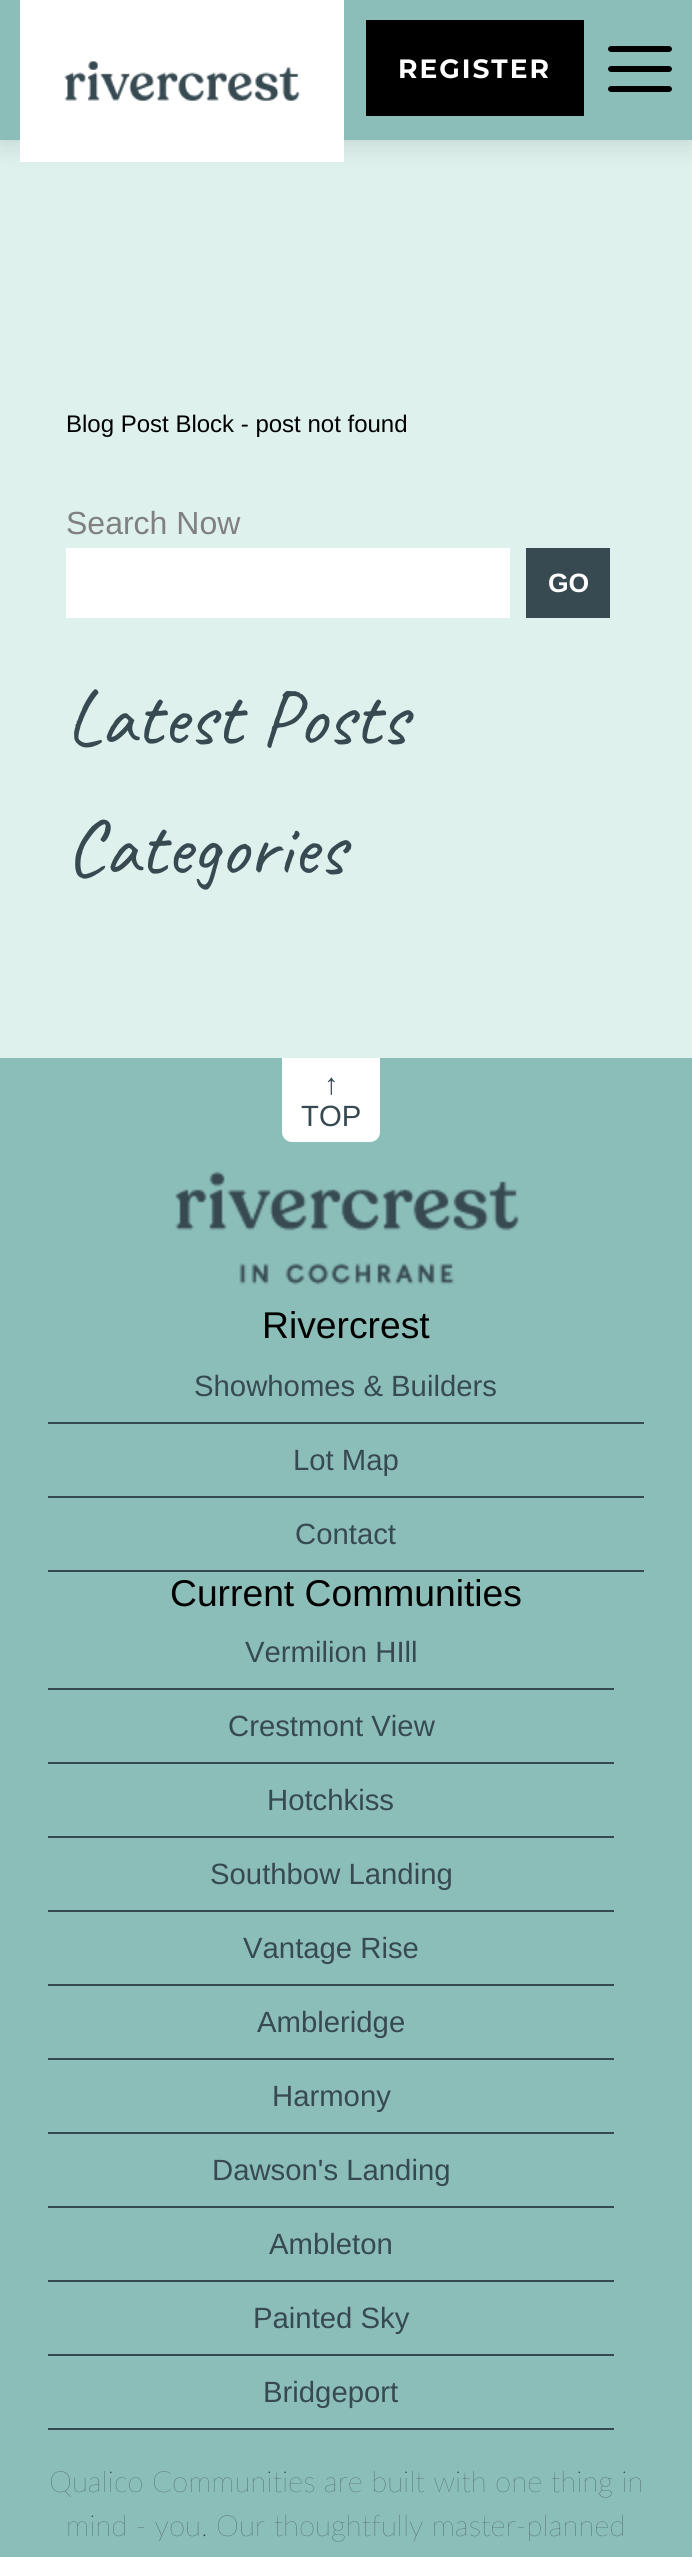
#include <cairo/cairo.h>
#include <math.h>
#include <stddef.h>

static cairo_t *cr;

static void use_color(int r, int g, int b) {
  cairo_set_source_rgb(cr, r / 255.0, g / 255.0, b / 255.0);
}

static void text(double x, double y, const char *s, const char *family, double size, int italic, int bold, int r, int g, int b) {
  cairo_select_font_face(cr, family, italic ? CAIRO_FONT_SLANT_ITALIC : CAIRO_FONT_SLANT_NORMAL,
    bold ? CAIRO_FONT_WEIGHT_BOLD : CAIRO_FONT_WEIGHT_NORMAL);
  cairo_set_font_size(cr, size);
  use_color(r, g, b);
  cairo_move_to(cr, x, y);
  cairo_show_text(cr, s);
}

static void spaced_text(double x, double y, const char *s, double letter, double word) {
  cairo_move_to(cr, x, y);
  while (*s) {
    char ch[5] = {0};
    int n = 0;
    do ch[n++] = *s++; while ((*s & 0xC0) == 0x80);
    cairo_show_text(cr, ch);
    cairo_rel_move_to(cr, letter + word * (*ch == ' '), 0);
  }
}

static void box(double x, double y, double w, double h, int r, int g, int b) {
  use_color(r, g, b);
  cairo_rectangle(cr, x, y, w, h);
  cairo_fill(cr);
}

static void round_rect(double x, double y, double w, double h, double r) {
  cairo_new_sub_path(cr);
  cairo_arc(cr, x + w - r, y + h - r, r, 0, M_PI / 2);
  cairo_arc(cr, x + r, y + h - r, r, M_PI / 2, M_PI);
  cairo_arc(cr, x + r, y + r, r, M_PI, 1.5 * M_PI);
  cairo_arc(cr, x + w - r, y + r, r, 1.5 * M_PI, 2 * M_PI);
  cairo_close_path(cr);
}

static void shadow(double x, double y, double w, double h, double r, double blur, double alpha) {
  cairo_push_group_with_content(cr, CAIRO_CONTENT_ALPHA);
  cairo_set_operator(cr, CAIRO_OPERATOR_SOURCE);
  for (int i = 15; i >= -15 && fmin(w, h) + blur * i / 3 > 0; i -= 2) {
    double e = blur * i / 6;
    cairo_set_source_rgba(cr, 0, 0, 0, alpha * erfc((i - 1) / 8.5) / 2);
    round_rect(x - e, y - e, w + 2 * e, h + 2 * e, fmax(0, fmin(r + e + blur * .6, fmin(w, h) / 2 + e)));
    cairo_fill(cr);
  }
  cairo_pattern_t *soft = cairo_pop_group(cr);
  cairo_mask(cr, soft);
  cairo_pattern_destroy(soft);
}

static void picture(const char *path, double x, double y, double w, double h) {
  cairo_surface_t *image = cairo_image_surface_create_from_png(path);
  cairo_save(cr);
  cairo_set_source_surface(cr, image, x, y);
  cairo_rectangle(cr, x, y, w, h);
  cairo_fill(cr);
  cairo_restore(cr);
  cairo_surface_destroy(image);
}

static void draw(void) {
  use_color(140, 190, 185);
  cairo_paint(cr);
  box(0, 140, 692, 918, 222, 241, 237);
  use_color(0, 0, 0);
  shadow(0, 0, 692, 140, 0, 15, 0.15);
  box(0, 0, 692, 140, 140, 190, 185);
  box(20, 0, 324, 162, 255, 255, 255);
  picture("img_01.png", 64, 61, 236, 40);
  box(366, 20, 218, 96, 0, 0, 0);
  cairo_new_path(cr);
  cairo_move_to(cr, 611, 46);
  cairo_line_to(cr, 640, 46);
  cairo_line_to(cr, 640, 52);
  cairo_line_to(cr, 611, 52);
  cairo_curve_to(cr, 609.5, 52, 608, 50.5, 608, 49);
  cairo_curve_to(cr, 608, 47.5, 609.5, 46, 611, 46);
  cairo_close_path(cr);
  cairo_fill(cr);
  cairo_new_path(cr);
  cairo_move_to(cr, 640, 46);
  cairo_line_to(cr, 669, 46);
  cairo_curve_to(cr, 670.5, 46, 672, 47.5, 672, 49);
  cairo_curve_to(cr, 672, 50.5, 670.5, 52, 669, 52);
  cairo_line_to(cr, 640, 52);
  cairo_close_path(cr);
  cairo_fill(cr);
  cairo_new_path(cr);
  cairo_move_to(cr, 611, 66);
  cairo_line_to(cr, 640, 66);
  cairo_line_to(cr, 640, 72);
  cairo_line_to(cr, 611, 72);
  cairo_curve_to(cr, 609.5, 72, 608, 70.5, 608, 69);
  cairo_curve_to(cr, 608, 67.5, 609.5, 66, 611, 66);
  cairo_close_path(cr);
  cairo_fill(cr);
  cairo_new_path(cr);
  cairo_move_to(cr, 640, 66);
  cairo_line_to(cr, 669, 66);
  cairo_curve_to(cr, 670.5, 66, 672, 67.5, 672, 69);
  cairo_curve_to(cr, 672, 70.5, 670.5, 72, 669, 72);
  cairo_line_to(cr, 640, 72);
  cairo_close_path(cr);
  cairo_fill(cr);
  cairo_new_path(cr);
  cairo_move_to(cr, 611, 86);
  cairo_line_to(cr, 640, 86);
  cairo_line_to(cr, 640, 92);
  cairo_line_to(cr, 611, 92);
  cairo_curve_to(cr, 609.5, 92, 608, 90.5, 608, 89);
  cairo_curve_to(cr, 608, 87.5, 609.5, 86, 611, 86);
  cairo_close_path(cr);
  cairo_fill(cr);
  cairo_new_path(cr);
  cairo_move_to(cr, 640, 86);
  cairo_line_to(cr, 669, 86);
  cairo_curve_to(cr, 670.5, 86, 672, 87.5, 672, 89);
  cairo_curve_to(cr, 672, 90.5, 670.5, 92, 669, 92);
  cairo_line_to(cr, 640, 92);
  cairo_close_path(cr);
  cairo_fill(cr);
  box(66, 548, 444, 70, 255, 255, 255);
  box(526, 548, 84, 70, 55, 74, 82);
  use_color(255, 255, 255);
  cairo_new_path(cr);
  cairo_move_to(cr, 282, 1058);
  cairo_line_to(cr, 380, 1058);
  cairo_line_to(cr, 380, 1132);
  cairo_curve_to(cr, 380, 1137.5, 375.5, 1142, 370, 1142);
  cairo_line_to(cr, 292, 1142);
  cairo_curve_to(cr, 286.5, 1142, 282, 1137.5, 282, 1132);
  cairo_close_path(cr);
  cairo_fill(cr);
  picture("img_02.png", 175, 1171, 344, 114);
  box(48, 1422, 596, 2, 55, 74, 82);
  box(48, 1496, 596, 2, 55, 74, 82);
  box(48, 1570, 596, 2, 55, 74, 82);
  box(48, 1688, 566, 2, 55, 74, 82);
  box(48, 1762, 566, 2, 55, 74, 82);
  box(48, 1836, 566, 2, 55, 74, 82);
  box(48, 1910, 566, 2, 55, 74, 82);
  box(48, 1984, 566, 2, 55, 74, 82);
  box(48, 2058, 566, 2, 55, 74, 82);
  box(48, 2132, 566, 2, 55, 74, 82);
  box(48, 2206, 566, 2, 55, 74, 82);
  box(48, 2280, 566, 2, 55, 74, 82);
  box(48, 2354, 566, 2, 55, 74, 82);
  box(48, 2428, 566, 2, 55, 74, 82);
  cairo_select_font_face(cr, "Montserrat", CAIRO_FONT_SLANT_NORMAL, CAIRO_FONT_WEIGHT_BOLD);
  cairo_set_font_size(cr, 26.5);
  use_color(255, 255, 255);
  spaced_text(398, 78, "REGISTER", 2, 0);
  text(66, 432, "Blog Post Block - post not found", "Liberation Sans", 24, 0, 0, 0, 0, 0);
  text(66, 534, "Search Now", "Liberation Sans", 32, 0, 0, 128, 128, 128);
  text(548, 592, "GO", "Liberation Sans", 26.5, 0, 1, 255, 255, 255);
  text(66, 744, "Latest Posts", "Caveat", 80, 0, 0, 55, 74, 82);
  text(66, 874, "Categories", "Caveat", 80, 0, 0, 55, 74, 82);
  text(324, 1094, "↑", "Liberation Sans", 29.3, 0, 0, 55, 74, 82);
  text(301, 1126, "TOP", "Liberation Sans", 29.3, 0, 0, 55, 74, 82);
  text(262, 1338, "Rivercrest", "Liberation Sans", 37.25, 0, 0, 0, 0, 0);
  text(194, 1396, "Showhomes & Builders", "Liberation Sans", 29.3, 0, 0, 55, 74, 82);
  text(293, 1470, "Lot Map", "Liberation Sans", 29.3, 0, 0, 55, 74, 82);
  text(295, 1544, "Contact", "Liberation Sans", 29.3, 0, 0, 55, 74, 82);
  text(170, 1606, "Current Communities", "Liberation Sans", 37.25, 0, 0, 0, 0, 0);
  text(245, 1662, "Vermilion HIll", "Liberation Sans", 29.3, 0, 0, 55, 74, 82);
  text(228, 1736, "Crestmont View", "Liberation Sans", 29.3, 0, 0, 55, 74, 82);
  text(267, 1810, "Hotchkiss", "Liberation Sans", 29.3, 0, 0, 55, 74, 82);
  text(210, 1884, "Southbow Landing", "Liberation Sans", 29.3, 0, 0, 55, 74, 82);
  text(243, 1958, "Vantage Rise", "Liberation Sans", 29.3, 0, 0, 55, 74, 82);
  text(257, 2032, "Ambleridge", "Liberation Sans", 29.3, 0, 0, 55, 74, 82);
  text(272, 2106, "Harmony", "Liberation Sans", 29.3, 0, 0, 55, 74, 82);
  text(212, 2180, "Dawson's Landing", "Liberation Sans", 29.3, 0, 0, 55, 74, 82);
  text(269, 2254, "Ambleton", "Liberation Sans", 29.3, 0, 0, 55, 74, 82);
  text(253, 2328, "Painted Sky", "Liberation Sans", 29.3, 0, 0, 55, 74, 82);
  text(263, 2402, "Bridgeport", "Liberation Sans", 29.3, 0, 0, 55, 74, 82);
  text(49, 2492, "Qualico Communities are built with one thing in", "Lato ExtraLight", 29.3, 0, 0, 55, 74, 82);
  text(66, 2536, "mind - you. Our thoughtfully master-planned", "Lato ExtraLight", 29.3, 0, 0, 55, 74, 82);
}

int main(void) {
  cairo_surface_t *surface = cairo_image_surface_create(CAIRO_FORMAT_RGB24, 692, 2557);
  cr = cairo_create(surface);
  cairo_font_options_t *options = cairo_font_options_create();
  cairo_font_options_set_hint_metrics(options, CAIRO_HINT_METRICS_OFF);
  cairo_font_options_set_hint_style(options, CAIRO_HINT_STYLE_NONE);
  cairo_set_font_options(cr, options);
  cairo_set_miter_limit(cr, 4);
  draw();
  cairo_surface_write_to_png(surface, "out.png");
  cairo_font_options_destroy(options);
  cairo_destroy(cr);
  cairo_surface_destroy(surface);
  return 0;
}
